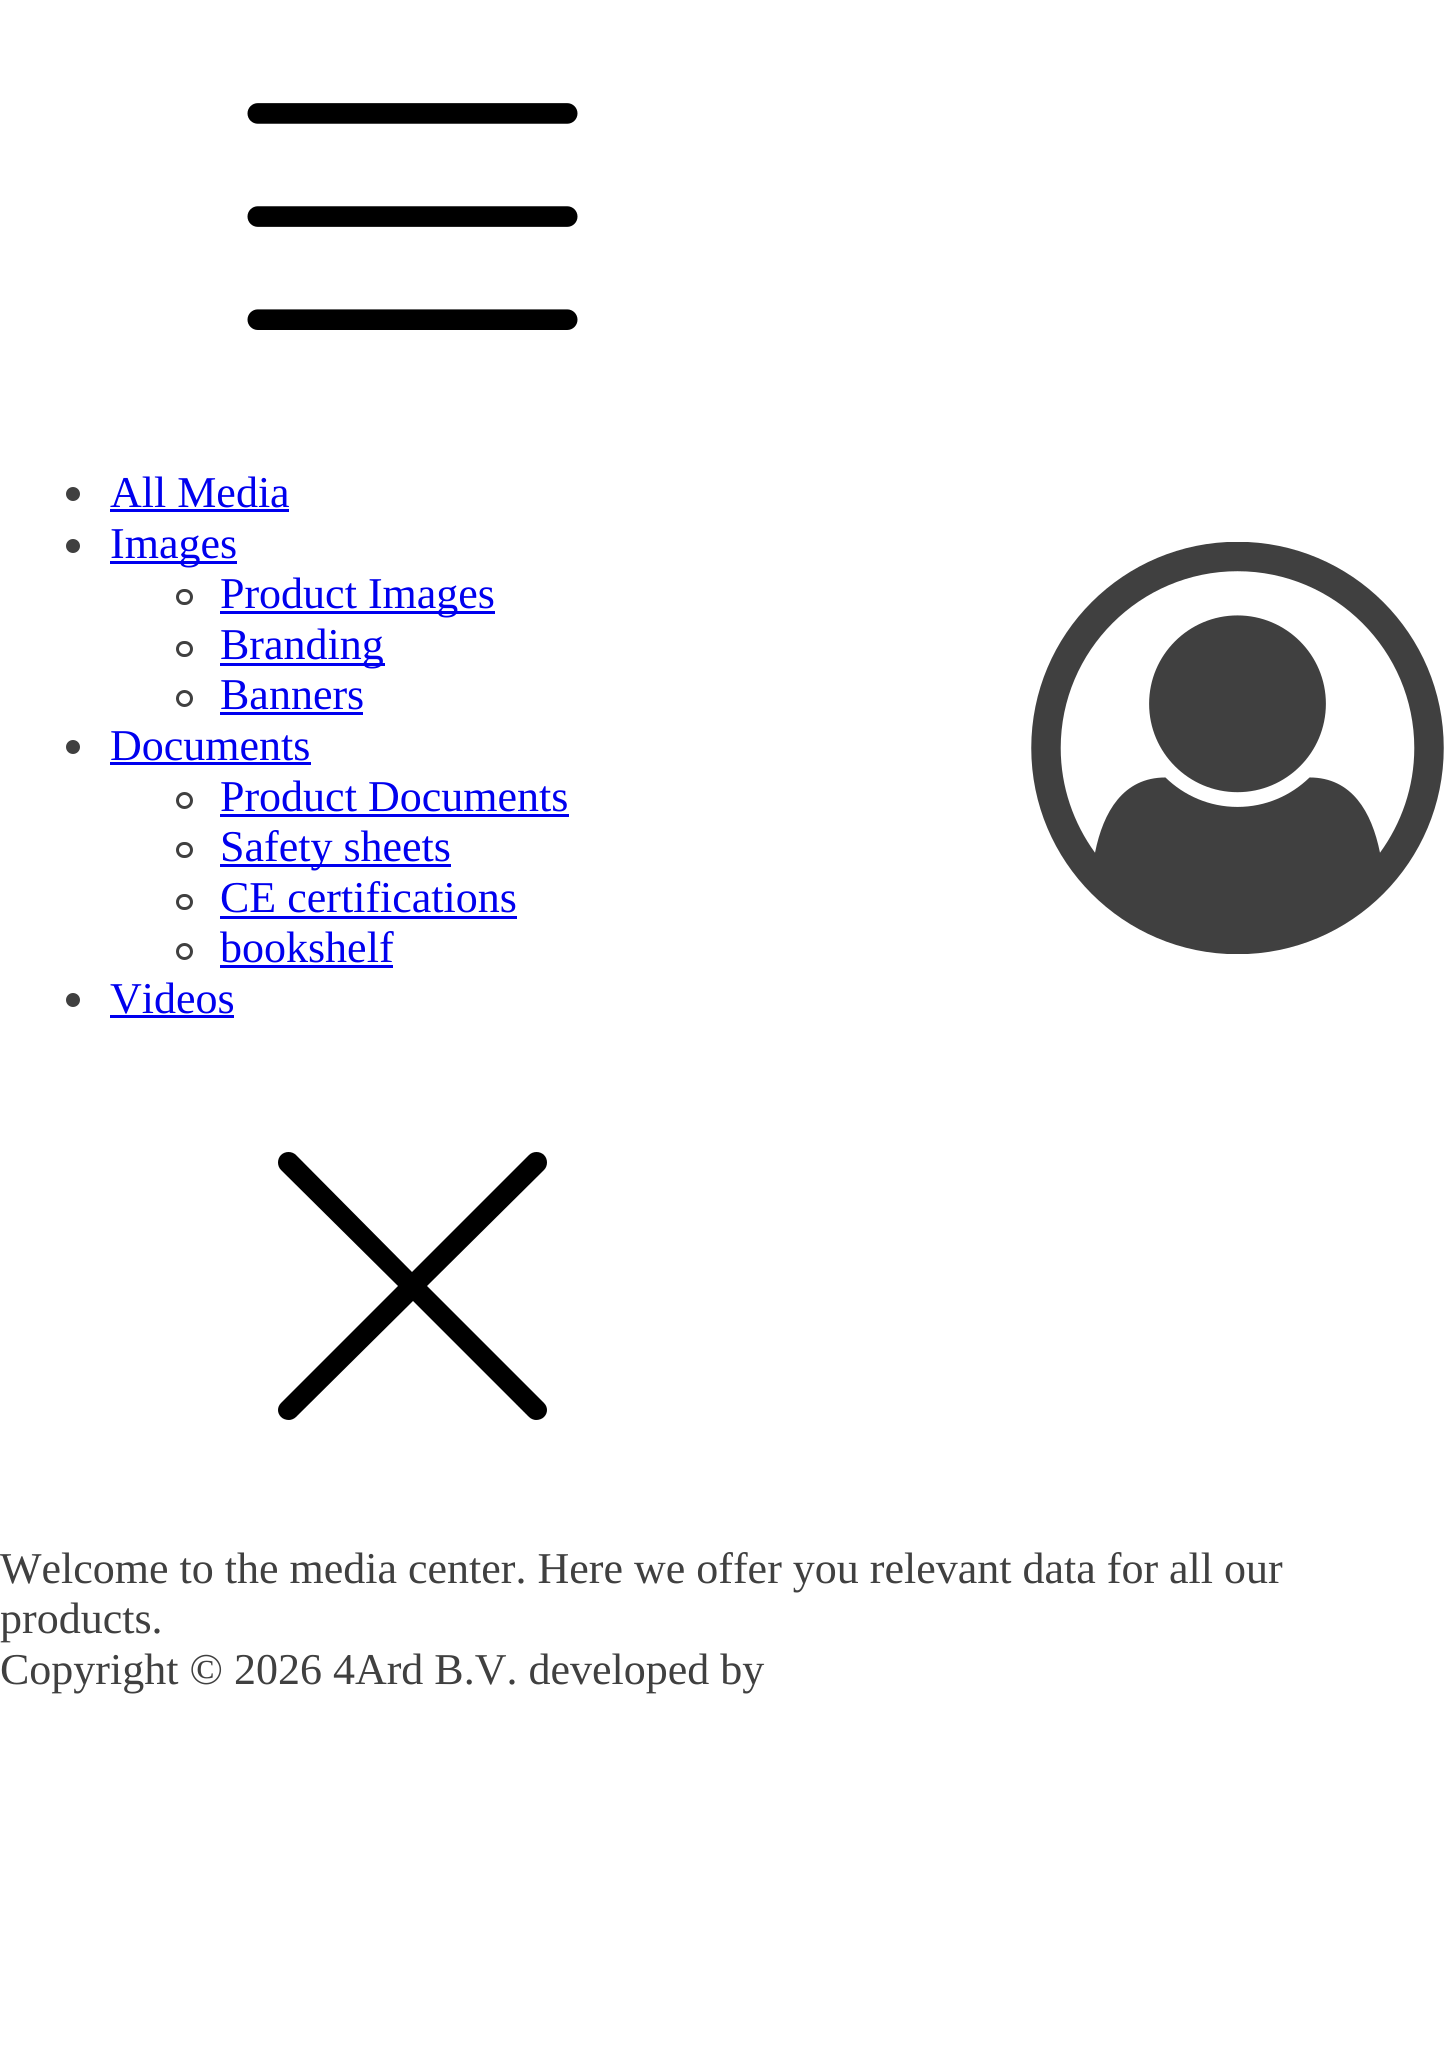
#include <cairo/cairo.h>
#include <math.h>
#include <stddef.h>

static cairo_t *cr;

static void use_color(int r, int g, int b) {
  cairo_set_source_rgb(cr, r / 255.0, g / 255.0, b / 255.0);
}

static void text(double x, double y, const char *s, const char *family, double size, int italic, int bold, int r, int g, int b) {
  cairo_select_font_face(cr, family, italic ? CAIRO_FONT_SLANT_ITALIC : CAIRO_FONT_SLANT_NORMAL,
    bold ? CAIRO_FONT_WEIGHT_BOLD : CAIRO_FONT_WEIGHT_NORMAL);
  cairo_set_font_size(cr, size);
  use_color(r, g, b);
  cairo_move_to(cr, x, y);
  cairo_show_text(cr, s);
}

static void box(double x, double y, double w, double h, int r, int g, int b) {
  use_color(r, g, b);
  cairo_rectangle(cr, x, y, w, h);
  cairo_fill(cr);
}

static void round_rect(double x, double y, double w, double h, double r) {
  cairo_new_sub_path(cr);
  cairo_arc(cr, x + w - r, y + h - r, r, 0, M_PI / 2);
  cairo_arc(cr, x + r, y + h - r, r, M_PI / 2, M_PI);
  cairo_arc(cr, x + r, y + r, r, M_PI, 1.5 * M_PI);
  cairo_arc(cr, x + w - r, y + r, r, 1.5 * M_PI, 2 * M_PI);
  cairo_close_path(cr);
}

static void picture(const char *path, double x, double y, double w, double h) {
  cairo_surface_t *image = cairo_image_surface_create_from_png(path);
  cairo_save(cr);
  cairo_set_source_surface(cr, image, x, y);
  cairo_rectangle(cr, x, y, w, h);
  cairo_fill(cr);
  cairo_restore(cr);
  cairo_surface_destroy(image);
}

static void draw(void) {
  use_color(255, 255, 255);
  cairo_paint(cr);
  picture("img_01.png", 247, 103, 331, 227);
  use_color(64, 64, 64);
  cairo_arc(cr, 73, 494, 7, 0, 2 * M_PI);
  cairo_fill(cr);
  box(110, 509, 179, 3, 0, 0, 238);
  use_color(64, 64, 64);
  cairo_arc(cr, 73, 546, 7, 0, 2 * M_PI);
  cairo_fill(cr);
  box(110, 561, 127, 3, 0, 0, 238);
  round_rect(177.5, 590.5, 14, 13, 6.5);
  use_color(64, 64, 64);
  cairo_set_line_width(cr, 3);
  cairo_stroke(cr);
  box(220, 611, 275, 3, 0, 0, 238);
  round_rect(177.5, 642.5, 14, 13, 6.5);
  use_color(64, 64, 64);
  cairo_stroke(cr);
  box(220, 663, 165, 3, 0, 0, 238);
  cairo_arc(cr, 184.5, 698.5, 7, 0, 2 * M_PI);
  use_color(64, 64, 64);
  cairo_stroke(cr);
  box(220, 712, 143, 3, 0, 0, 238);
  use_color(64, 64, 64);
  cairo_arc(cr, 73, 747, 7, 0, 2 * M_PI);
  cairo_fill(cr);
  box(110, 762, 201, 3, 0, 0, 238);
  cairo_arc(cr, 184.5, 800.5, 7, 0, 2 * M_PI);
  use_color(64, 64, 64);
  cairo_stroke(cr);
  box(220, 814, 349, 3, 0, 0, 238);
  round_rect(177.5, 843.5, 14, 13, 6.5);
  use_color(64, 64, 64);
  cairo_stroke(cr);
  box(220, 864, 231, 3, 0, 0, 238);
  round_rect(177.5, 895.5, 14, 13, 6.5);
  use_color(64, 64, 64);
  cairo_stroke(cr);
  box(220, 916, 297, 3, 0, 0, 238);
  cairo_arc(cr, 184.5, 951.5, 7, 0, 2 * M_PI);
  use_color(64, 64, 64);
  cairo_stroke(cr);
  box(220, 965, 173, 3, 0, 0, 238);
  use_color(64, 64, 64);
  cairo_arc(cr, 73, 1000, 7, 0, 2 * M_PI);
  cairo_fill(cr);
  box(110, 1015, 124, 3, 0, 0, 238);
  use_color(0, 0, 0);
  cairo_new_path(cr);
  cairo_move_to(cr, 427, 1286);
  cairo_line_to(cr, 544, 1170);
  cairo_curve_to(cr, 548, 1166, 548, 1159, 544, 1155);
  cairo_curve_to(cr, 540, 1151, 533, 1151, 529, 1155);
  cairo_line_to(cr, 412, 1272);
  cairo_line_to(cr, 296, 1155);
  cairo_curve_to(cr, 292, 1151, 285, 1151, 281, 1155);
  cairo_curve_to(cr, 277, 1159, 277, 1166, 281, 1170);
  cairo_line_to(cr, 398, 1286);
  cairo_line_to(cr, 281, 1403);
  cairo_curve_to(cr, 277, 1407, 277, 1413, 281, 1417);
  cairo_curve_to(cr, 283, 1419, 286, 1420, 289, 1420);
  cairo_curve_to(cr, 291, 1420, 294, 1419, 296, 1417);
  cairo_line_to(cr, 413, 1301);
  cairo_line_to(cr, 529, 1417);
  cairo_curve_to(cr, 531, 1419, 534, 1420, 536, 1420);
  cairo_curve_to(cr, 539, 1420, 542, 1419, 544, 1417);
  cairo_curve_to(cr, 548, 1413, 548, 1407, 544, 1403);
  cairo_close_path(cr);
  cairo_fill(cr);
  picture("img_02.png", 1031, 542, 413, 412);
  text(110, 507, "All Media", "Liberation Serif", 44, 0, 0, 0, 0, 238);
  text(110, 558, "Images", "Liberation Serif", 44, 0, 0, 0, 0, 238);
  text(220, 608, "Product Images", "Liberation Serif", 44, 0, 0, 0, 0, 238);
  text(220, 659, "Branding", "Liberation Serif", 44, 0, 0, 0, 0, 238);
  text(220, 709, "Banners", "Liberation Serif", 44, 0, 0, 0, 0, 238);
  text(110, 760, "Documents", "Liberation Serif", 44, 0, 0, 0, 0, 238);
  text(220, 811, "Product Documents", "Liberation Serif", 44, 0, 0, 0, 0, 238);
  text(220, 861, "Safety sheets", "Liberation Serif", 44, 0, 0, 0, 0, 238);
  text(220, 912, "CE certifications", "Liberation Serif", 44, 0, 0, 0, 0, 238);
  text(220, 962, "bookshelf", "Liberation Serif", 44, 0, 0, 0, 0, 238);
  text(110, 1013, "Videos", "Liberation Serif", 44, 0, 0, 0, 0, 238);
  text(0, 1583, "Welcome to the media center. Here we offer you relevant data for all our", "Liberation Serif", 44, 0, 0, 64, 64, 64);
  text(0, 1633, "products.", "Liberation Serif", 44, 0, 0, 64, 64, 64);
  text(0, 1684, "Copyright © 2026 4Ard B.V. developed by", "Liberation Serif", 44, 0, 0, 64, 64, 64);
}

int main(void) {
  cairo_surface_t *surface = cairo_image_surface_create(CAIRO_FORMAT_RGB24, 1450, 2052);
  cr = cairo_create(surface);
  cairo_font_options_t *options = cairo_font_options_create();
  cairo_font_options_set_hint_metrics(options, CAIRO_HINT_METRICS_OFF);
  cairo_font_options_set_hint_style(options, CAIRO_HINT_STYLE_NONE);
  cairo_set_font_options(cr, options);
  cairo_set_miter_limit(cr, 4);
  draw();
  cairo_surface_write_to_png(surface, "out.png");
  cairo_font_options_destroy(options);
  cairo_destroy(cr);
  cairo_surface_destroy(surface);
  return 0;
}
